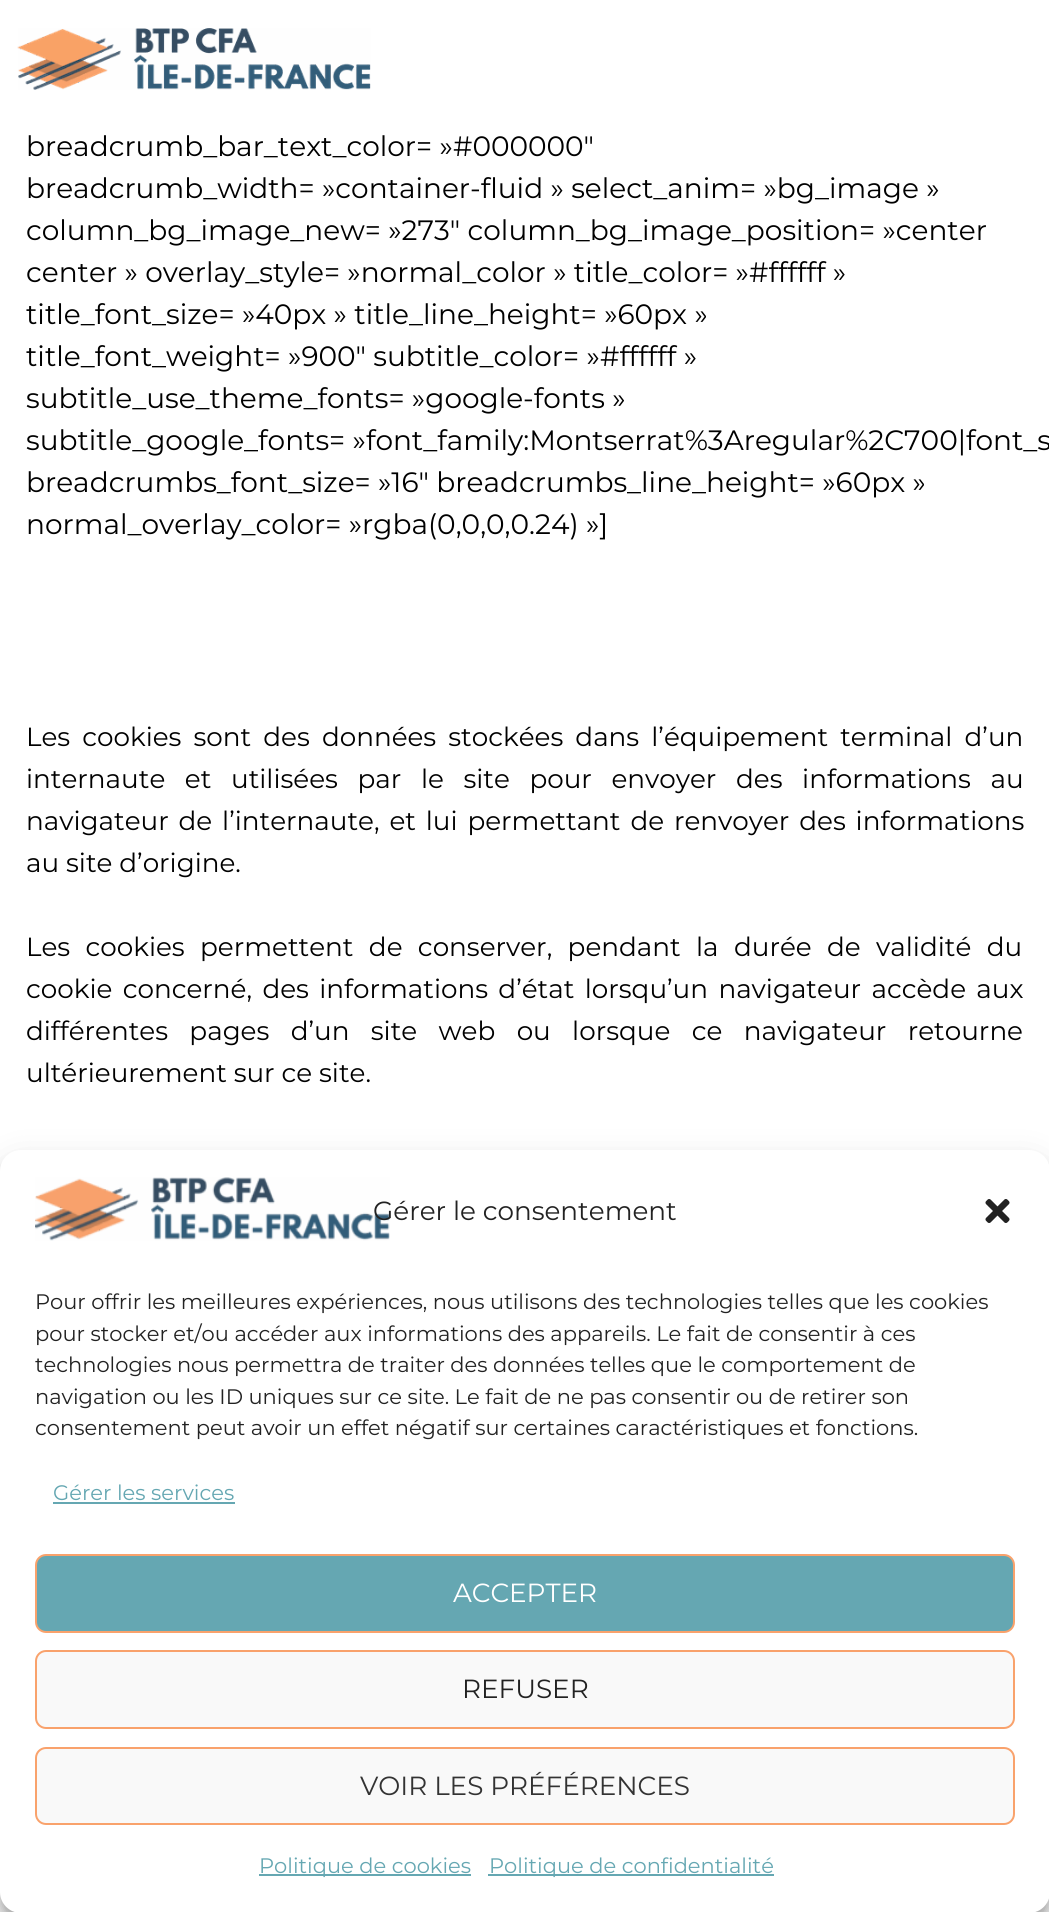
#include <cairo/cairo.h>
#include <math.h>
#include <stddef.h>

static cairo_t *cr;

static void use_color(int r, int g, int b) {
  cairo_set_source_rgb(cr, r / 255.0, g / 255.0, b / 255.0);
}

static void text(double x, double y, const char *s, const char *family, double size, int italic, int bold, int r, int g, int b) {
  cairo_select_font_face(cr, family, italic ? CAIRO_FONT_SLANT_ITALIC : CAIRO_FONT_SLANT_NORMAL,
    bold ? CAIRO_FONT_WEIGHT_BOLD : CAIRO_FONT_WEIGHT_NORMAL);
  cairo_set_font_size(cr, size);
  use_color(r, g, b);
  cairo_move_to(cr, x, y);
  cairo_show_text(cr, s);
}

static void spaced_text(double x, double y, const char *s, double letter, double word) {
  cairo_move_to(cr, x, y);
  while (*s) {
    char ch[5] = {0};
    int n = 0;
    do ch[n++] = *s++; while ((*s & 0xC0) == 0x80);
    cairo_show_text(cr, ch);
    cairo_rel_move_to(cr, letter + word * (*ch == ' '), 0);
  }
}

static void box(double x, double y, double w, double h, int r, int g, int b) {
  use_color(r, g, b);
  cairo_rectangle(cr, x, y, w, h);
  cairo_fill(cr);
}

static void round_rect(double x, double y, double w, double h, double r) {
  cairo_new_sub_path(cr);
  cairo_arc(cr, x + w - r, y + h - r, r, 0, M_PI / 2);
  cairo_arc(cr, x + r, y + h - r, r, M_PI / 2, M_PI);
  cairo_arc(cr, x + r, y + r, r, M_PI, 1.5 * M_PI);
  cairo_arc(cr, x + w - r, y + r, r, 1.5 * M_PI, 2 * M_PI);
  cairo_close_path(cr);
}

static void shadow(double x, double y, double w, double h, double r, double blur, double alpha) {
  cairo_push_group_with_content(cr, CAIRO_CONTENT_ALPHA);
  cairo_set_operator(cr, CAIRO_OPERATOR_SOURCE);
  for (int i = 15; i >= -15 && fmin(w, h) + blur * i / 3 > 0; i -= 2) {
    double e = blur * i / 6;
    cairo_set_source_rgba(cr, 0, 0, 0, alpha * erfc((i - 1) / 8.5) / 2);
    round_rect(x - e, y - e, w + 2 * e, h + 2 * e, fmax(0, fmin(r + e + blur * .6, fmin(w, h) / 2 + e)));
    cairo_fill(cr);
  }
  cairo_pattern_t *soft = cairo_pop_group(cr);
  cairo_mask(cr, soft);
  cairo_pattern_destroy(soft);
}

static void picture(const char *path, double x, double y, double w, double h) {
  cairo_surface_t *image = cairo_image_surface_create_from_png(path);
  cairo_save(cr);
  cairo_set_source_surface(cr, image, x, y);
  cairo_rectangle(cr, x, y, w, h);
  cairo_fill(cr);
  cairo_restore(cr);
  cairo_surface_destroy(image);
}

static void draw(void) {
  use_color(255, 255, 255);
  cairo_paint(cr);
  picture("img_01.png", 17, 28, 354, 62);
  use_color(0, 0, 0);
  shadow(0, 1160, 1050, 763, 21, 5, 0.23);
  shadow(0, 1167, 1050, 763, 21, 17.5, 0.19);
  use_color(255, 255, 255);
  round_rect(0, 1150, 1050, 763, 21);
  cairo_fill(cr);
  picture("img_02.png", 35, 1177, 355, 64);
  picture("img_03.png", 985, 1199, 25, 24);
  box(53, 1502, 182, 2, 101, 167, 178);
  round_rect(36, 1555, 978, 77, 10);
  cairo_fill_preserve(cr);
  use_color(249, 162, 108);
  cairo_stroke(cr);
  use_color(249, 249, 249);
  round_rect(36, 1651, 978, 77, 10);
  cairo_fill_preserve(cr);
  use_color(249, 162, 108);
  cairo_stroke(cr);
  use_color(249, 249, 249);
  round_rect(36, 1748, 978, 76, 10);
  cairo_fill_preserve(cr);
  use_color(249, 162, 108);
  cairo_stroke(cr);
  box(259, 1874, 212, 2, 101, 167, 178);
  box(488, 1874, 286, 2, 101, 167, 178);
  text(26, 156, "breadcrumb_bar_text_color= »#000000″", "Montserrat", 28, 0, 0, 0, 0, 0);
  text(26, 198, "breadcrumb_width= »container-fluid » select_anim= »bg_image »", "Montserrat", 28, 0, 0, 0, 0, 0);
  text(26, 240, "column_bg_image_new= »273″ column_bg_image_position= »center", "Montserrat", 28, 0, 0, 0, 0, 0);
  text(26, 282, "center » overlay_style= »normal_color » title_color= »#ffffff »", "Montserrat", 28, 0, 0, 0, 0, 0);
  text(26, 324, "title_font_size= »40px » title_line_height= »60px »", "Montserrat", 28, 0, 0, 0, 0, 0);
  text(26, 366, "title_font_weight= »900″ subtitle_color= »#ffffff »", "Montserrat", 28, 0, 0, 0, 0, 0);
  text(26, 408, "subtitle_use_theme_fonts= »google-fonts »", "Montserrat", 28, 0, 0, 0, 0, 0);
  text(26, 450, "subtitle_google_fonts= »font_family:Montserrat%3Aregular%2C700|font_s", "Montserrat", 28, 0, 0, 0, 0, 0);
  text(26, 492, "breadcrumbs_font_size= »16″ breadcrumbs_line_height= »60px »", "Montserrat", 28, 0, 0, 0, 0, 0);
  text(26, 534, "normal_overlay_color= »rgba(0,0,0,0.24) »]", "Montserrat", 28, 0, 0, 0, 0, 0);
  cairo_set_font_size(cr, 26.25);
  spaced_text(26, 746, "Les cookies sont des données stockées dans l’équipement terminal d’un", 0, 5.25);
  spaced_text(26, 788, "internaute et utilisées par le site pour envoyer des informations au", 0, 12.75);
  spaced_text(26, 830, "navigateur de l’internaute, et lui permettant de renvoyer des informations", 0, 3);
  text(26, 872, "au site d’origine.", "Montserrat", 26.25, 0, 0, 0, 0, 0);
  spaced_text(26, 956, "Les cookies permettent de conserver, pendant la durée de validité du", 0, 8.5);
  spaced_text(26, 998, "cookie concerné, des informations d’état lorsqu’un navigateur accède aux", 0, 3.5);
  spaced_text(26, 1040, "différentes pages d’un site web ou lorsque ce navigateur retourne", 0, 14.5);
  text(26, 1082, "ultérieurement sur ce site.", "Montserrat", 26.25, 0, 0, 0, 0, 0);
  text(373, 1220, "Gérer le consentement", "Montserrat", 26.25, 0, 0, 34, 34, 34);
  text(35, 1309, "Pour offrir les meilleures expériences, nous utilisons des technologies telles que les cookies", "Montserrat", 21, 0, 0, 34, 34, 34);
  text(35, 1341, "pour stocker et/ou accéder aux informations des appareils. Le fait de consentir à ces", "Montserrat", 21, 0, 0, 34, 34, 34);
  text(35, 1372, "technologies nous permettra de traiter des données telles que le comportement de", "Montserrat", 21, 0, 0, 34, 34, 34);
  text(35, 1404, "navigation ou les ID uniques sur ce site. Le fait de ne pas consentir ou de retirer son", "Montserrat", 21, 0, 0, 34, 34, 34);
  text(35, 1435, "consentement peut avoir un effet négatif sur certaines caractéristiques et fonctions.", "Montserrat", 21, 0, 0, 34, 34, 34);
  text(53, 1500, "Gérer les services", "Montserrat", 21, 0, 0, 101, 167, 178);
  text(453, 1602, "ACCEPTER", "Montserrat", 26.25, 0, 0, 255, 255, 255);
  text(462, 1698, "REFUSER", "Montserrat", 26.25, 0, 0, 34, 34, 34);
  text(360, 1795, "VOIR LES PRÉFÉRENCES", "Montserrat", 26.25, 0, 0, 51, 51, 51);
  text(259, 1873, "Politique de cookies", "Montserrat", 21, 0, 0, 101, 167, 178);
  text(489, 1873, "Politique de confidentialité", "Montserrat", 21, 0, 0, 101, 167, 178);
}

int main(void) {
  cairo_surface_t *surface = cairo_image_surface_create(CAIRO_FORMAT_RGB24, 1049, 1912);
  cr = cairo_create(surface);
  cairo_font_options_t *options = cairo_font_options_create();
  cairo_font_options_set_hint_metrics(options, CAIRO_HINT_METRICS_OFF);
  cairo_font_options_set_hint_style(options, CAIRO_HINT_STYLE_NONE);
  cairo_set_font_options(cr, options);
  cairo_set_miter_limit(cr, 4);
  draw();
  cairo_surface_write_to_png(surface, "out.png");
  cairo_font_options_destroy(options);
  cairo_destroy(cr);
  cairo_surface_destroy(surface);
  return 0;
}
